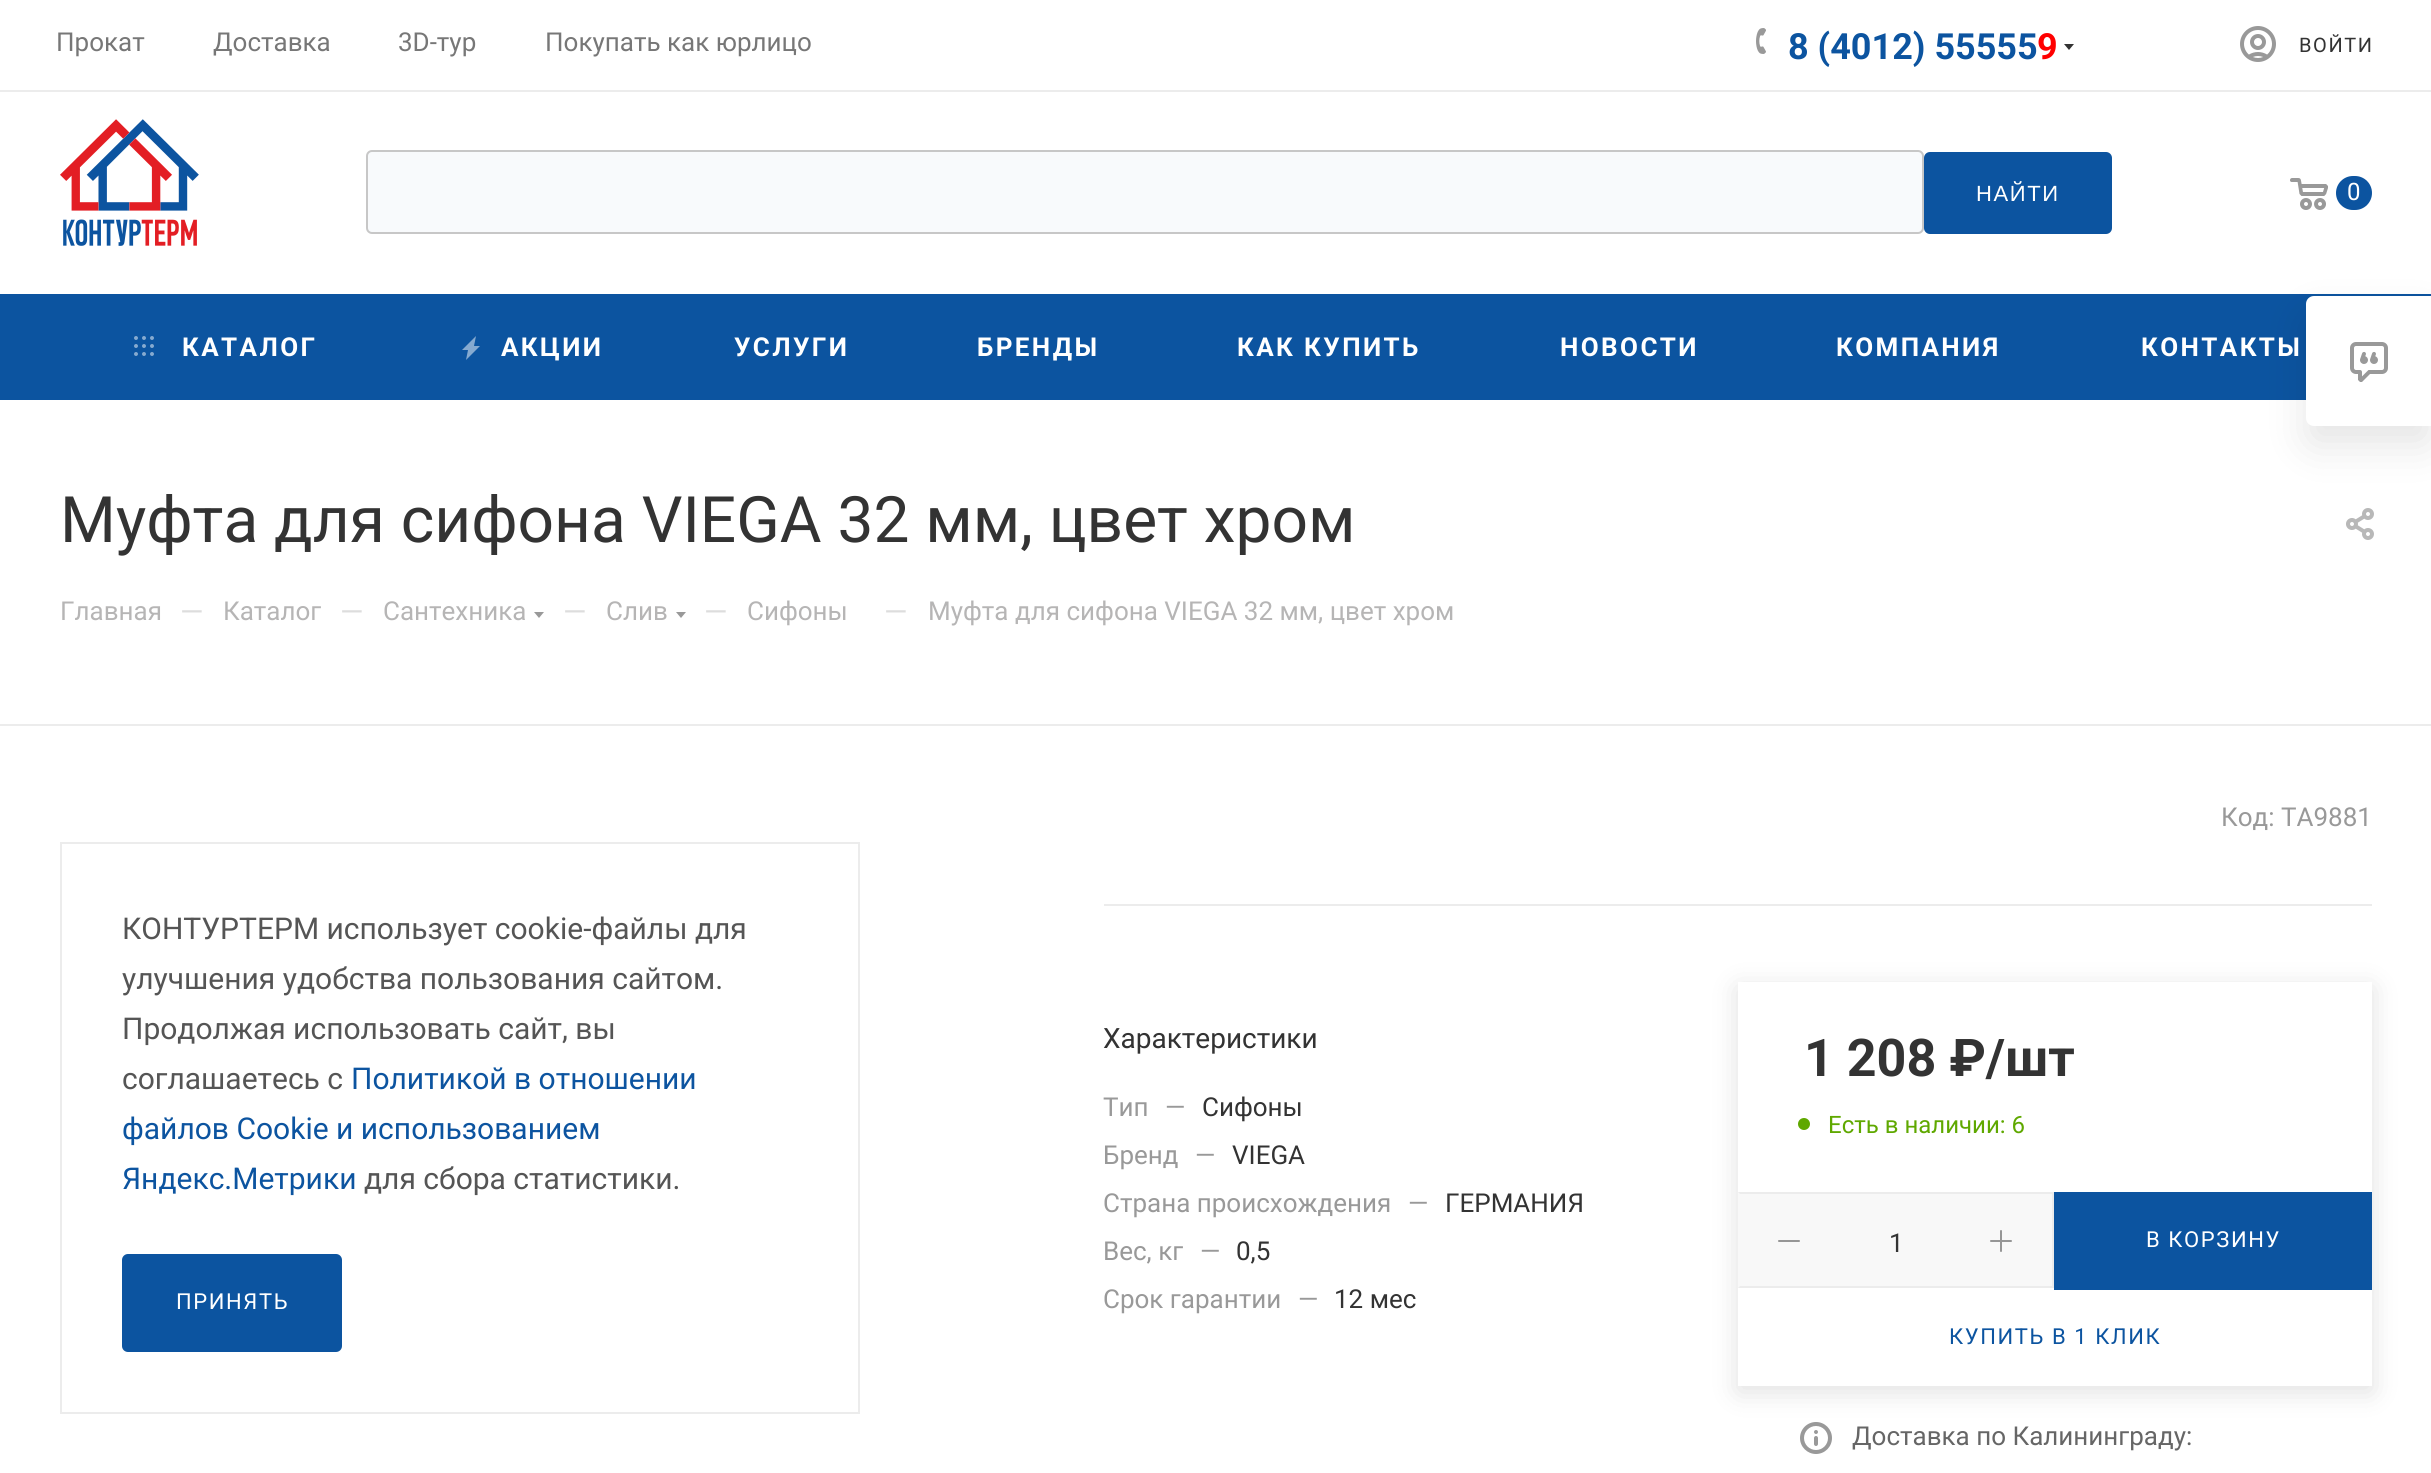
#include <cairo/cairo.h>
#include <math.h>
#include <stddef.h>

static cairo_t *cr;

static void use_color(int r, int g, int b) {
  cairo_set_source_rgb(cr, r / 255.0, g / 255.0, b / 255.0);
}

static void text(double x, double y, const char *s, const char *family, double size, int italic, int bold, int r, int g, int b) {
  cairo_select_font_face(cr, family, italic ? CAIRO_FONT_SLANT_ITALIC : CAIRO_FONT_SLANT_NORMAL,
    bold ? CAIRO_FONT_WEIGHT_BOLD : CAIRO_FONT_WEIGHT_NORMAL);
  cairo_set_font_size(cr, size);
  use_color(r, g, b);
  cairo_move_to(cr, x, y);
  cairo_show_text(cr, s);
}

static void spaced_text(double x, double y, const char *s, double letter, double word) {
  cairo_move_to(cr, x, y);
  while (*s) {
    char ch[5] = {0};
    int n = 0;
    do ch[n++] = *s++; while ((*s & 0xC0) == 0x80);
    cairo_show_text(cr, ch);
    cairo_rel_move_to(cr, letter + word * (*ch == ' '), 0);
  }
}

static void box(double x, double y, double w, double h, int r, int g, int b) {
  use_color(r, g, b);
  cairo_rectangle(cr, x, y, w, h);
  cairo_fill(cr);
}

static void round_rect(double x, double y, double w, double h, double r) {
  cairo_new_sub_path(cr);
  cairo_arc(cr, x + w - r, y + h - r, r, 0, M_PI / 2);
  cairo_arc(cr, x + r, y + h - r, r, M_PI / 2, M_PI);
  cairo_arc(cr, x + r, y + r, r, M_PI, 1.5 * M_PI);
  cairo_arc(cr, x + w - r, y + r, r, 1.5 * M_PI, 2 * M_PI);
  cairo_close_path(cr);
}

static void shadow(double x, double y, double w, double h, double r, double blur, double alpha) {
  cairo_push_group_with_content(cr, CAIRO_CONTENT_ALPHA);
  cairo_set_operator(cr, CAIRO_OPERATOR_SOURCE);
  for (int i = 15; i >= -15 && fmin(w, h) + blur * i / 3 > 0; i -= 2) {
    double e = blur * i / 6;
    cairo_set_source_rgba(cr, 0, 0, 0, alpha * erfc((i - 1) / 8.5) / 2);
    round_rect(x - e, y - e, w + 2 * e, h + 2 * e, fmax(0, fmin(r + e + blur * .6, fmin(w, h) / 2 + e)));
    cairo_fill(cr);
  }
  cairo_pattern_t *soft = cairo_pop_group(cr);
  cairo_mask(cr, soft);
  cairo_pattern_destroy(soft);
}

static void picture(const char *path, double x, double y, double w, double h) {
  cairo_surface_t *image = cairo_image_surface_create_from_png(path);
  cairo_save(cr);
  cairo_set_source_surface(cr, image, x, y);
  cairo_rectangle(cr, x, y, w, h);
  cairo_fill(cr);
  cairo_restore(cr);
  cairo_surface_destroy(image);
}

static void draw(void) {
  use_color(255, 255, 255);
  cairo_paint(cr);
  box(0, 90, 2431, 2, 236, 236, 236);
  picture("img_01.png", 1756, 28, 10, 26);
  use_color(51, 51, 51);
  cairo_set_fill_rule(cr, CAIRO_FILL_RULE_EVEN_ODD);
  cairo_new_path(cr);
  cairo_move_to(cr, 2064, 44);
  cairo_line_to(cr, 2074, 44);
  cairo_line_to(cr, 2069, 50);
  cairo_close_path(cr);
  cairo_fill(cr);
  picture("img_02.png", 2240, 26, 36, 36);
  picture("img_03.png", 60, 119, 139, 127);
  use_color(248, 250, 252);
  round_rect(367, 151, 1556, 82, 5);
  cairo_fill_preserve(cr);
  use_color(199, 199, 199);
  cairo_stroke(cr);
  use_color(12, 84, 160);
  round_rect(1924, 152, 188, 82, 6);
  cairo_fill(cr);
  picture("img_04.png", 2290, 178, 38, 32);
  round_rect(2336, 176, 36, 34, 17);
  cairo_fill(cr);
  box(0, 294, 2431, 106, 12, 84, 160);
  picture("img_05.png", 134, 336, 20, 20);
  use_color(134, 170, 208);
  cairo_new_path(cr);
  cairo_move_to(cr, 476, 336);
  cairo_line_to(cr, 462, 350);
  cairo_line_to(cr, 468, 350);
  cairo_line_to(cr, 466, 360);
  cairo_line_to(cr, 480, 346);
  cairo_line_to(cr, 474, 346);
  cairo_close_path(cr);
  cairo_fill(cr);
  picture("img_06.png", 2346, 508, 28, 32);
  use_color(153, 153, 153);
  cairo_new_path(cr);
  cairo_move_to(cr, 534, 612);
  cairo_line_to(cr, 544, 612);
  cairo_line_to(cr, 539, 618);
  cairo_close_path(cr);
  cairo_fill(cr);
  cairo_new_path(cr);
  cairo_move_to(cr, 676, 612);
  cairo_line_to(cr, 686, 612);
  cairo_line_to(cr, 681, 618);
  cairo_close_path(cr);
  cairo_fill(cr);
  box(0, 724, 2431, 2, 236, 236, 236);
  box(1104, 904, 1268, 2, 236, 236, 236);
  cairo_save(cr);
  cairo_new_path(cr);
  cairo_move_to(cr, 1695, 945);
  cairo_line_to(cr, 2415, 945);
  cairo_line_to(cr, 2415, 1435);
  cairo_line_to(cr, 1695, 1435);
  cairo_close_path(cr);
  cairo_move_to(cr, 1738, 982);
  cairo_line_to(cr, 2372, 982);
  cairo_line_to(cr, 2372, 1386);
  cairo_line_to(cr, 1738, 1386);
  cairo_close_path(cr);
  cairo_clip(cr);
  use_color(0, 0, 0);
  shadow(1738, 988, 634, 404, 0, 14, 0.12);
  cairo_restore(cr);
  use_color(95, 168, 0);
  cairo_arc(cr, 1804, 1124, 6, 0, 2 * M_PI);
  cairo_fill(cr);
  box(1738, 1192, 314, 96, 248, 248, 248);
  use_color(236, 236, 236);
  cairo_set_fill_rule(cr, CAIRO_FILL_RULE_WINDING);
  cairo_new_path(cr);
  cairo_move_to(cr, 1738, 1192);
  cairo_line_to(cr, 2054, 1192);
  cairo_line_to(cr, 2052, 1194);
  cairo_line_to(cr, 1740, 1194);
  cairo_close_path(cr);
  cairo_fill(cr);
  box(2052, 1192, 2, 96, 236, 236, 236);
  cairo_new_path(cr);
  cairo_move_to(cr, 2054, 1288);
  cairo_line_to(cr, 1738, 1288);
  cairo_line_to(cr, 1740, 1286);
  cairo_line_to(cr, 2052, 1286);
  cairo_close_path(cr);
  cairo_fill(cr);
  use_color(150, 150, 150);
  round_rect(1778, 1240, 22, 2, 1);
  cairo_fill(cr);
  picture("img_07.png", 1990, 1230, 22, 22);
  box(2054, 1192, 318, 98, 12, 84, 160);
  picture("img_08.png", 1800, 1422, 32, 32);
  use_color(0, 0, 0);
  shadow(2306, 316, 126, 130, 8, 20, 0.1);
  use_color(255, 255, 255);
  cairo_new_path(cr);
  cairo_move_to(cr, 2314, 296);
  cairo_line_to(cr, 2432, 296);
  cairo_line_to(cr, 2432, 426);
  cairo_line_to(cr, 2314, 426);
  cairo_curve_to(cr, 2309.5, 426, 2306, 422.5, 2306, 418);
  cairo_line_to(cr, 2306, 304);
  cairo_curve_to(cr, 2306, 299.5, 2309.5, 296, 2314, 296);
  cairo_close_path(cr);
  cairo_fill(cr);
  picture("img_09.png", 2350, 342, 38, 40);
  cairo_rectangle(cr, 61, 843, 798, 570);
  use_color(236, 236, 236);
  cairo_stroke(cr);
  use_color(12, 84, 160);
  round_rect(123, 1255, 218, 96, 5);
  cairo_fill_preserve(cr);
  cairo_stroke(cr);
  text(56, 51, "Прокат", "Roboto", 26, 0, 0, 119, 119, 119);
  text(213, 51, "Доставка", "Roboto", 26, 0, 0, 119, 119, 119);
  text(398, 51, "3D-тур", "Roboto", 26, 0, 0, 119, 119, 119);
  text(545, 51, "Покупать как юрлицо", "Roboto", 26, 0, 0, 119, 119, 119);
  text(1788, 59, "8 (4012) 55555", "Roboto", 36, 0, 1, 12, 84, 160);
  text(2037, 59, "9", "Roboto", 36, 0, 1, 255, 0, 0);
  cairo_select_font_face(cr, "Roboto", CAIRO_FONT_SLANT_NORMAL, CAIRO_FONT_WEIGHT_NORMAL);
  cairo_set_font_size(cr, 20);
  use_color(51, 51, 51);
  spaced_text(2299, 52, "ВОЙТИ", 1.6, 0);
  cairo_select_font_face(cr, "Liberation Sans", CAIRO_FONT_SLANT_NORMAL, CAIRO_FONT_WEIGHT_NORMAL);
  cairo_set_font_size(cr, 22);
  use_color(255, 255, 255);
  spaced_text(1976, 201, "НАЙТИ", 1.6, 0);
  text(2347, 200, "0", "Roboto", 24, 0, 0, 255, 255, 255);
  cairo_select_font_face(cr, "Roboto", CAIRO_FONT_SLANT_NORMAL, CAIRO_FONT_WEIGHT_BOLD);
  cairo_set_font_size(cr, 26);
  spaced_text(182, 356, "КАТАЛОГ", 2.4, 0);
  spaced_text(501, 356, "АКЦИИ", 2.4, 0);
  spaced_text(734, 356, "УСЛУГИ", 2.4, 0);
  spaced_text(977, 356, "БРЕНДЫ", 2.4, 0);
  spaced_text(1237, 356, "КАК КУПИТЬ", 2.4, 0);
  spaced_text(1560, 356, "НОВОСТИ", 2.4, 0);
  spaced_text(1836, 356, "КОМПАНИЯ", 2.4, 0);
  spaced_text(2141, 356, "КОНТАКТЫ", 2.4, 0);
  text(60, 542, "Муфта для сифона VIEGA 32 мм, цвет хром", "Roboto", 64, 0, 0, 51, 51, 51);
  text(60, 620, "Главная", "Roboto", 26, 0, 0, 182, 181, 181);
  text(180, 622, "—", "Roboto", 30, 0, 0, 221, 221, 221);
  text(223, 620, "Каталог", "Roboto", 26, 0, 0, 182, 181, 181);
  text(340, 622, "—", "Roboto", 30, 0, 0, 221, 221, 221);
  text(383, 620, "Сантехника", "Roboto", 26, 0, 0, 182, 181, 181);
  text(563, 622, "—", "Roboto", 30, 0, 0, 221, 221, 221);
  text(606, 620, "Слив", "Roboto", 26, 0, 0, 182, 181, 181);
  text(704, 622, "—", "Roboto", 30, 0, 0, 221, 221, 221);
  text(747, 620, "Сифоны", "Roboto", 26, 0, 0, 182, 181, 181);
  text(884, 622, "—", "Roboto", 30, 0, 0, 221, 221, 221);
  text(928, 620, "Муфта для сифона VIEGA 32 мм, цвет хром", "Roboto", 26, 0, 0, 182, 181, 181);
  text(2221, 826, "Код: ТА9881", "Roboto", 26, 0, 0, 153, 153, 153);
  text(1103, 1048, "Характеристики", "Roboto", 28, 0, 0, 51, 51, 51);
  text(1103, 1116, "Тип", "Roboto", 26, 0, 0, 153, 153, 153);
  text(1165, 1116, "—", "Roboto", 26, 0, 0, 153, 153, 153);
  text(1202, 1116, "Сифоны", "Roboto", 26, 0, 0, 51, 51, 51);
  text(1103, 1164, "Бренд", "Roboto", 26, 0, 0, 153, 153, 153);
  text(1195, 1164, "—", "Roboto", 26, 0, 0, 153, 153, 153);
  text(1232, 1164, "VIEGA", "Roboto", 26, 0, 0, 51, 51, 51);
  text(1103, 1212, "Страна происхождения", "Roboto", 26, 0, 0, 153, 153, 153);
  text(1408, 1212, "—", "Roboto", 26, 0, 0, 153, 153, 153);
  text(1445, 1212, "ГЕРМАНИЯ", "Roboto", 26, 0, 0, 51, 51, 51);
  text(1103, 1260, "Вес, кг", "Roboto", 26, 0, 0, 153, 153, 153);
  text(1200, 1260, "—", "Roboto", 26, 0, 0, 153, 153, 153);
  text(1236, 1260, "0,5", "Roboto", 26, 0, 0, 51, 51, 51);
  text(1103, 1308, "Срок гарантии", "Roboto", 26, 0, 0, 153, 153, 153);
  text(1298, 1308, "—", "Roboto", 26, 0, 0, 153, 153, 153);
  text(1334, 1308, "12 мес", "Roboto", 26, 0, 0, 51, 51, 51);
  text(1804, 1076, "1 208 ₽/шт", "Roboto", 52, 0, 1, 51, 51, 51);
  text(1828, 1133, "Есть в наличии: 6", "Roboto", 24, 0, 0, 95, 168, 0);
  text(1889, 1252, "1", "Roboto", 26, 0, 0, 51, 51, 51);
  cairo_set_font_size(cr, 22);
  use_color(255, 255, 255);
  spaced_text(2146, 1247, "В КОРЗИНУ", 1.6, 0);
  use_color(12, 84, 160);
  spaced_text(1949, 1344, "КУПИТЬ В 1 КЛИК", 1.6, 0);
  text(1852, 1445, "Доставка по Калининграду:", "Roboto", 26, 0, 0, 102, 102, 102);
  text(122, 939, "КОНТУРТЕРМ использует cookie-файлы для", "Roboto", 30, 0, 0, 85, 85, 85);
  text(122, 989, "улучшения удобства пользования сайтом.", "Roboto", 30, 0, 0, 85, 85, 85);
  text(122, 1039, "Продолжая использовать сайт, вы", "Roboto", 30, 0, 0, 85, 85, 85);
  text(122, 1089, "соглашаетесь с", "Roboto", 30, 0, 0, 85, 85, 85);
  text(351, 1089, "Политикой в отношении", "Roboto", 30, 0, 0, 12, 84, 160);
  text(122, 1139, "файлов Сookie и использованием", "Roboto", 30, 0, 0, 12, 84, 160);
  text(122, 1189, "Яндекс.Метрики", "Roboto", 30, 0, 0, 12, 84, 160);
  text(364, 1189, "для сбора статистики.", "Roboto", 30, 0, 0, 85, 85, 85);
  cairo_set_font_size(cr, 22);
  use_color(255, 255, 255);
  spaced_text(176, 1309, "ПРИНЯТЬ", 1.6, 0);
}

int main(void) {
  cairo_surface_t *surface = cairo_image_surface_create(CAIRO_FORMAT_RGB24, 2431, 1473);
  cr = cairo_create(surface);
  cairo_font_options_t *options = cairo_font_options_create();
  cairo_font_options_set_hint_metrics(options, CAIRO_HINT_METRICS_OFF);
  cairo_font_options_set_hint_style(options, CAIRO_HINT_STYLE_NONE);
  cairo_set_font_options(cr, options);
  cairo_set_miter_limit(cr, 4);
  draw();
  cairo_surface_write_to_png(surface, "out.png");
  cairo_font_options_destroy(options);
  cairo_destroy(cr);
  cairo_surface_destroy(surface);
  return 0;
}
